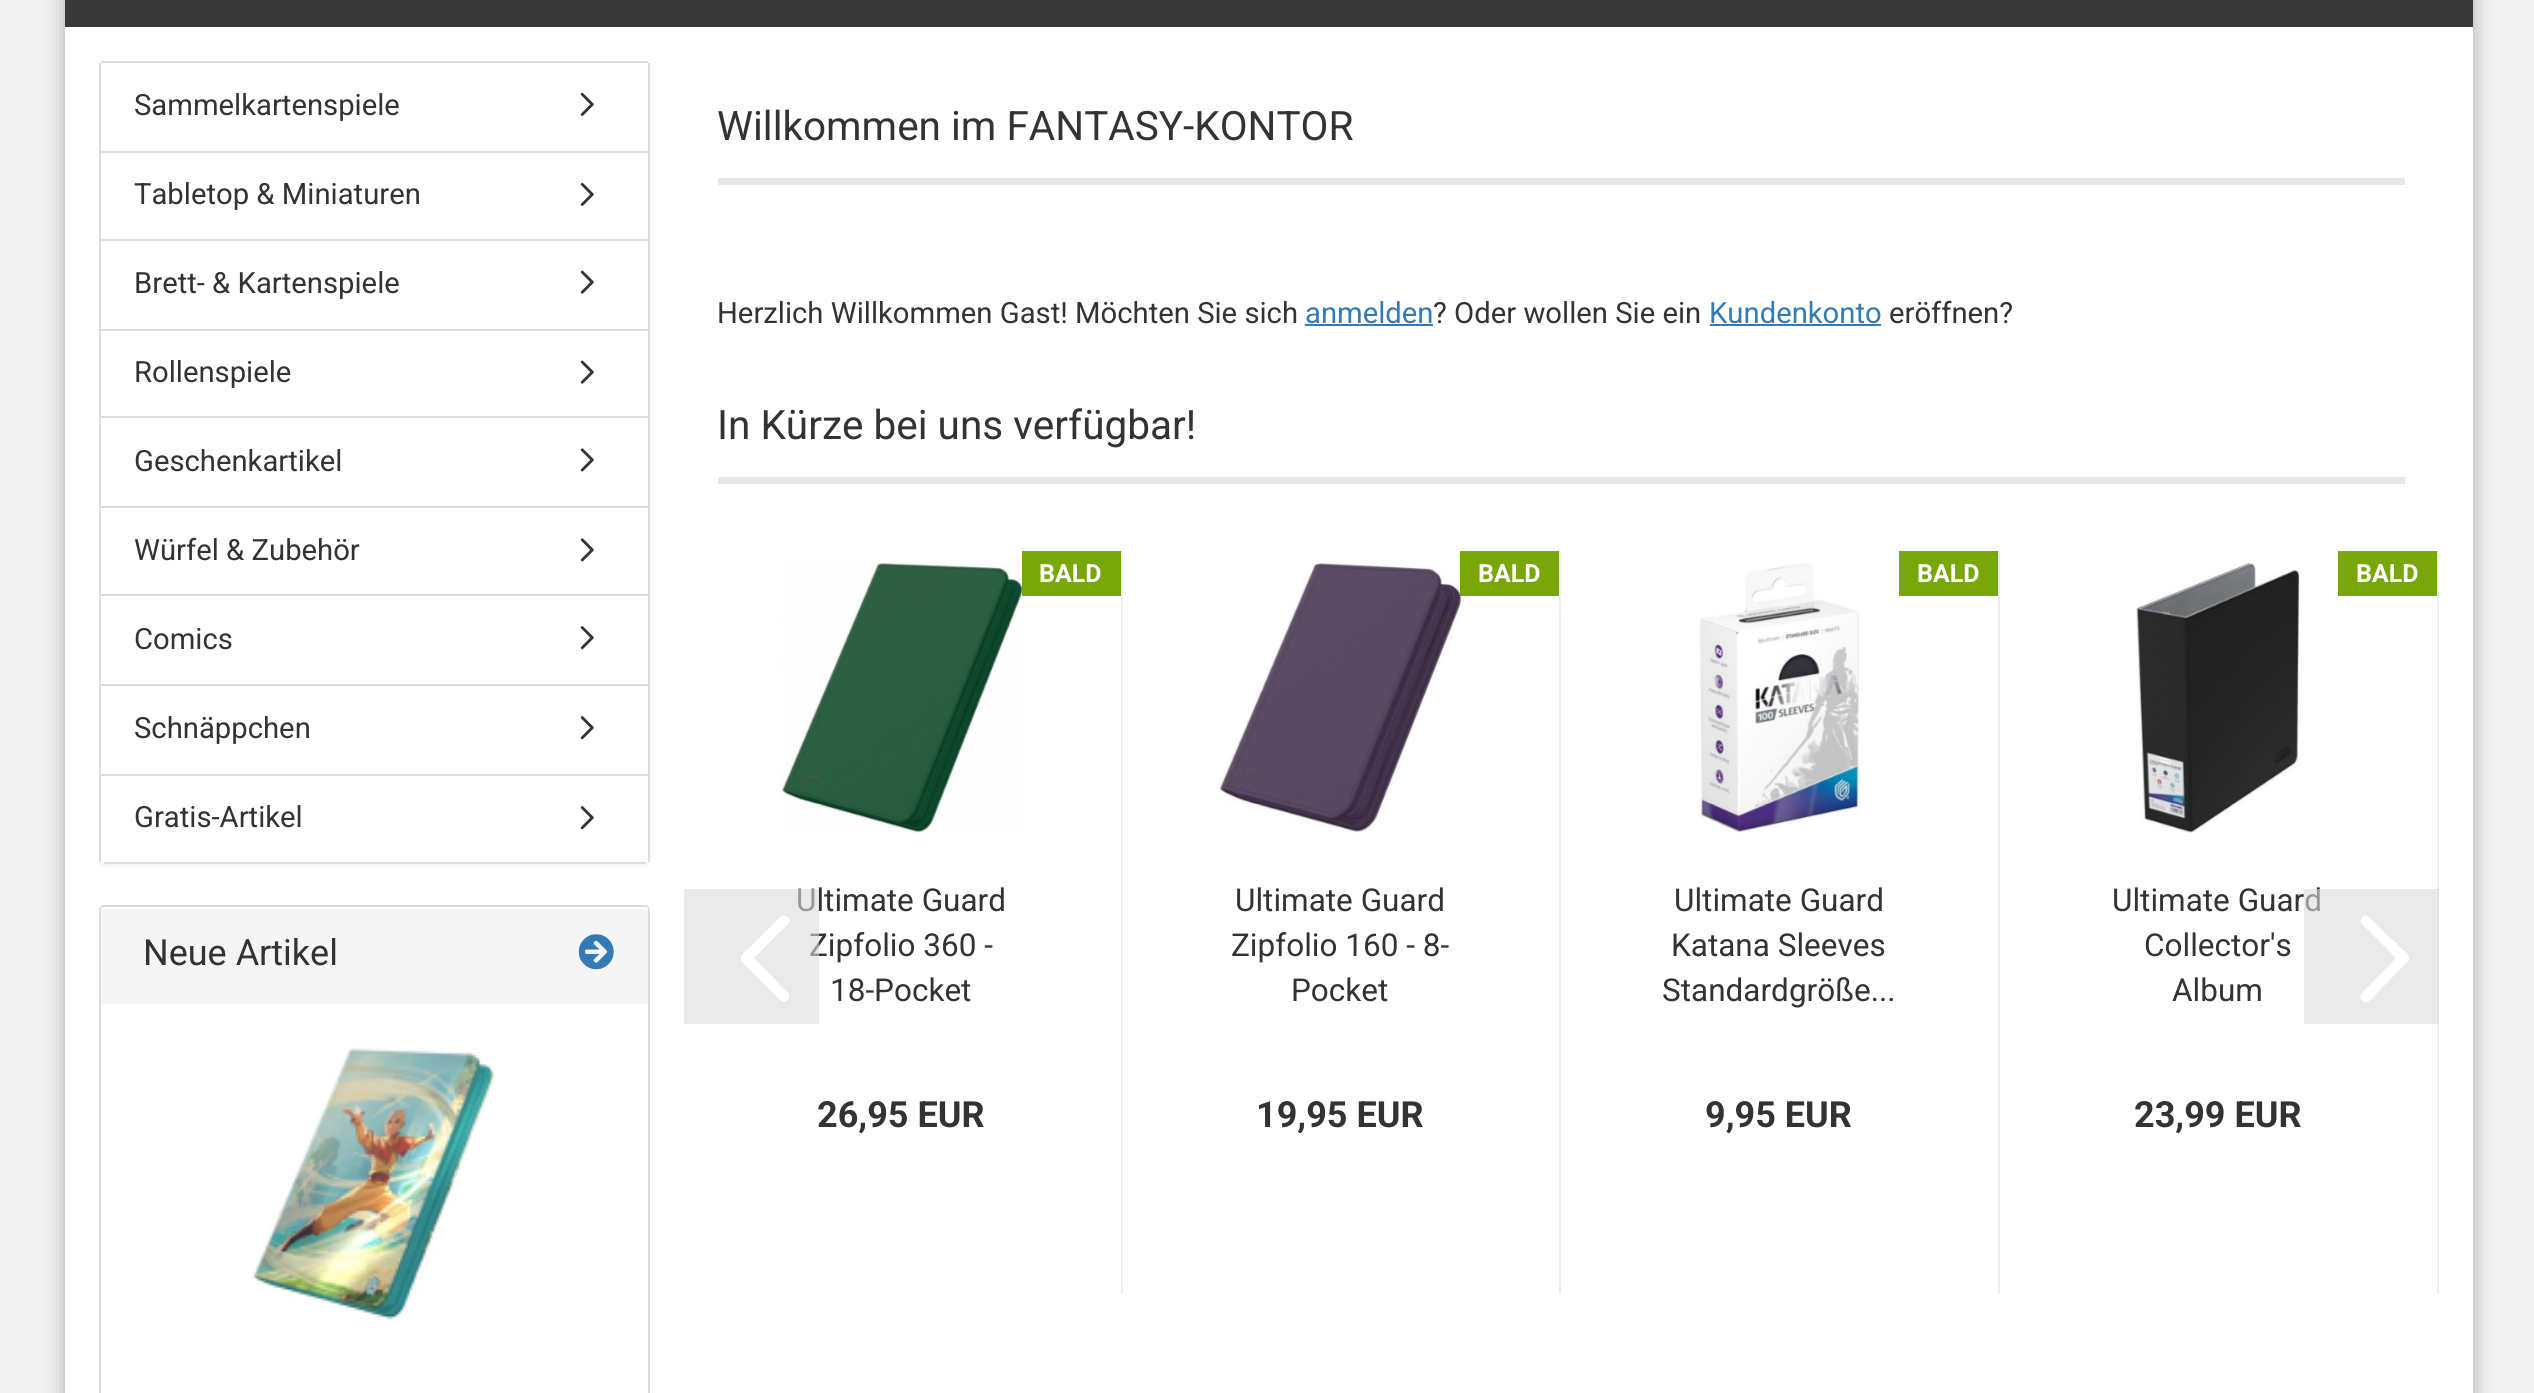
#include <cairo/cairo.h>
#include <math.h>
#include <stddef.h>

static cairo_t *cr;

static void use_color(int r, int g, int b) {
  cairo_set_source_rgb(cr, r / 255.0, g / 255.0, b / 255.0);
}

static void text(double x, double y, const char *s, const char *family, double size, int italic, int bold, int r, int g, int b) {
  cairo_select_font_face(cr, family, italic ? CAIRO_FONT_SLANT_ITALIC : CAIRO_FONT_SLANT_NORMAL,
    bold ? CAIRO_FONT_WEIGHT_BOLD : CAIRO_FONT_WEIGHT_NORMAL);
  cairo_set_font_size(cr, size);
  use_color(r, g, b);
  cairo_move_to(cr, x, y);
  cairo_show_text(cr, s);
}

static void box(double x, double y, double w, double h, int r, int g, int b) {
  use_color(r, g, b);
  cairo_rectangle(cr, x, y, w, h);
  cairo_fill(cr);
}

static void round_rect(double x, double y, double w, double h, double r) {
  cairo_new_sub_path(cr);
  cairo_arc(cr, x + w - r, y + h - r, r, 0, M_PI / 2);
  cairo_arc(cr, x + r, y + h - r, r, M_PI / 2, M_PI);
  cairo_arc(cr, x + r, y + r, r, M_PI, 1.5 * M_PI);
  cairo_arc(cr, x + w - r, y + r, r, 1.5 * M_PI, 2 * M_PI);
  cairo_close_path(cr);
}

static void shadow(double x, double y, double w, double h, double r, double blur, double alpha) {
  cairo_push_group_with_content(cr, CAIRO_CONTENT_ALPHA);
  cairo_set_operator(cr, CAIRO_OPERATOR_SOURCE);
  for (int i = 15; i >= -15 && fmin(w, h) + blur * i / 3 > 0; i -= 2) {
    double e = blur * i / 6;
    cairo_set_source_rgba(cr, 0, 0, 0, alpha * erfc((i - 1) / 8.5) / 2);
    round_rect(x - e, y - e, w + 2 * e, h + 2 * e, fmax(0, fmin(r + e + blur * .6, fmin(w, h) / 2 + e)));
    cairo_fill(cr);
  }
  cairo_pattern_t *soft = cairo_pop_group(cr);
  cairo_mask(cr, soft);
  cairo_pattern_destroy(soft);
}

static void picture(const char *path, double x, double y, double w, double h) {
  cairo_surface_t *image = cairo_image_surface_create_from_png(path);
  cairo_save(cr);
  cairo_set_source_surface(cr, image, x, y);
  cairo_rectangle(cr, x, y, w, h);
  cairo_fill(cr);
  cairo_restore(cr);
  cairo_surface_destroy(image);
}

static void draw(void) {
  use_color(243, 243, 243);
  cairo_paint(cr);
  use_color(0, 0, 0);
  shadow(65, -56, 2408, 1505, 23, 11, 0.3);
  box(65, 27, 2408, 1366, 255, 255, 255);
  box(65, 0, 2408, 27, 57, 57, 57);
  use_color(0, 0, 0);
  shadow(99, 63, 551, 803, 5, 1, 0.05);
  use_color(255, 255, 255);
  round_rect(99, 61, 551, 803, 5);
  cairo_fill(cr);
  box(101, 61, 547, 2, 221, 221, 221);
  box(648, 63, 2, 799, 221, 221, 221);
  box(99, 63, 2, 799, 221, 221, 221);
  box(101, 151, 547, 2, 221, 221, 221);
  picture("img_01.png", 580, 92, 14, 24);
  box(101, 239, 547, 2, 221, 221, 221);
  picture("img_01.png", 580, 182, 14, 24);
  box(101, 329, 547, 2, 221, 221, 221);
  picture("img_02.png", 580, 270, 14, 24);
  box(101, 416, 547, 2, 221, 221, 221);
  picture("img_02.png", 580, 360, 14, 24);
  box(101, 506, 547, 2, 221, 221, 221);
  picture("img_03.png", 580, 448, 14, 24);
  box(101, 594, 547, 2, 221, 221, 221);
  picture("img_03.png", 580, 538, 14, 24);
  box(101, 684, 547, 2, 221, 221, 221);
  picture("img_04.png", 580, 626, 14, 24);
  box(101, 774, 547, 2, 221, 221, 221);
  picture("img_04.png", 580, 716, 14, 24);
  box(104, 862, 542, 2, 221, 221, 221);
  picture("img_04.png", 580, 806, 14, 24);
  round_rect(100, 906, 549, 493, 4);
  cairo_stroke(cr);
  use_color(245, 245, 245);
  cairo_new_path(cr);
  cairo_move_to(cr, 103, 907);
  cairo_line_to(cr, 646, 907);
  cairo_curve_to(cr, 647, 907, 648, 908, 648, 909);
  cairo_line_to(cr, 648, 1004);
  cairo_line_to(cr, 101, 1004);
  cairo_line_to(cr, 101, 909);
  cairo_curve_to(cr, 101, 908, 102, 907, 103, 907);
  cairo_close_path(cr);
  cairo_fill(cr);
  use_color(255, 255, 255);
  cairo_new_path(cr);
  cairo_move_to(cr, 104, 909);
  cairo_line_to(cr, 646, 909);
  cairo_curve_to(cr, 647, 909, 648, 910, 648, 911);
  cairo_curve_to(cr, 648, 909, 648, 907, 646, 907);
  cairo_line_to(cr, 103, 907);
  cairo_line_to(cr, 101, 908);
  cairo_line_to(cr, 101, 911);
  cairo_curve_to(cr, 101, 910, 102, 909, 104, 909);
  cairo_close_path(cr);
  cairo_fill(cr);
  picture("img_05.png", 578, 934, 36, 36);
  picture("img_06.png", 252, 1048, 244, 272);
  box(718, 178, 1687, 7, 231, 231, 231);
  box(1305, 324, 128, 2, 51, 122, 183);
  box(1710, 324, 171, 2, 51, 122, 183);
  box(718, 477, 1687, 7, 231, 231, 231);
  box(1121, 551, 2, 743, 238, 238, 238);
  picture("img_07.png", 781, 562, 244, 271);
  box(1022, 551, 99, 45, 121, 167, 10);
  box(1559, 551, 2, 743, 238, 238, 238);
  picture("img_08.png", 1218, 563, 244, 270);
  box(1460, 551, 99, 45, 121, 167, 10);
  box(1998, 551, 2, 743, 238, 238, 238);
  picture("img_09.png", 1696, 563, 164, 270);
  box(1899, 551, 99, 45, 121, 167, 10);
  box(2437, 551, 2, 743, 238, 238, 238);
  picture("img_10.png", 2135, 563, 165, 270);
  box(2338, 551, 99, 45, 121, 167, 10);
  text(134, 115, "Sammelkartenspiele", "Roboto", 29.25, 0, 0, 51, 51, 51);
  text(134, 204, "Tabletop & Miniaturen", "Roboto", 29.25, 0, 0, 51, 51, 51);
  text(134, 293, "Brett- & Kartenspiele", "Roboto", 29.25, 0, 0, 51, 51, 51);
  text(134, 382, "Rollenspiele", "Roboto", 29.25, 0, 0, 51, 51, 51);
  text(134, 471, "Geschenkartikel", "Roboto", 29.25, 0, 0, 51, 51, 51);
  text(134, 560, "Würfel & Zubehör", "Roboto", 29.25, 0, 0, 51, 51, 51);
  text(134, 649, "Comics", "Roboto", 29.25, 0, 0, 51, 51, 51);
  text(134, 738, "Schnäppchen", "Roboto", 29.25, 0, 0, 51, 51, 51);
  text(134, 827, "Gratis-Artikel", "Roboto", 29.25, 0, 0, 51, 51, 51);
  text(143, 965, "Neue Artikel", "Roboto", 36, 0, 0, 51, 51, 51);
  text(717, 140, "Willkommen im FANTASY-KONTOR", "Roboto", 40.5, 0, 0, 51, 51, 51);
  text(717, 323, "Herzlich Willkommen Gast! Möchten Sie sich", "Roboto", 29.25, 0, 0, 51, 51, 51);
  text(1305, 323, "anmelden", "Roboto", 29.25, 0, 0, 51, 122, 183);
  text(1433, 323, "? Oder wollen Sie ein", "Roboto", 29.25, 0, 0, 51, 51, 51);
  text(1709, 323, "Kundenkonto", "Roboto", 29.25, 0, 0, 51, 122, 183);
  text(1889, 323, "eröffnen?", "Roboto", 29.25, 0, 0, 51, 51, 51);
  text(717, 439, "In Kürze bei uns verfügbar!", "Roboto", 40.5, 0, 0, 51, 51, 51);
  text(1039, 582, "BALD", "Roboto", 25, 0, 1, 255, 255, 255);
  text(796, 911, "Ultimate Guard", "Roboto", 31.5, 0, 0, 51, 51, 51);
  text(809, 956, "Zipfolio 360 -", "Roboto", 31.5, 0, 0, 51, 51, 51);
  cairo_set_source_rgba(cr, 0.863, 0.863, 0.863, 0.6);
  cairo_rectangle(cr, 684, 889, 135, 135);
  cairo_fill(cr);
  use_color(255, 255, 255);
  cairo_new_path(cr);
  cairo_move_to(cr, 741, 958);
  cairo_curve_to(cr, 741, 954, 747, 950, 749, 948);
  cairo_line_to(cr, 774, 923);
  cairo_curve_to(cr, 776, 921, 781, 914, 786, 916);
  cairo_curve_to(cr, 788, 917, 790, 919, 789, 922);
  cairo_curve_to(cr, 789, 925, 783, 929, 782, 930);
  cairo_line_to(cr, 754, 958);
  cairo_line_to(cr, 788, 993);
  cairo_curve_to(cr, 789, 994, 789, 995, 789, 997);
  cairo_curve_to(cr, 789, 998, 789, 999, 788, 1000);
  cairo_curve_to(cr, 786, 1001, 785, 1002, 784, 1002);
  cairo_curve_to(cr, 783, 1002, 781, 1001, 780, 1000);
  cairo_line_to(cr, 742, 962);
  cairo_curve_to(cr, 741, 961, 741, 960, 741, 958);
  cairo_close_path(cr);
  cairo_fill(cr);
  text(830, 1001, "18-Pocket", "Roboto", 31.5, 0, 0, 51, 51, 51);
  text(817, 1127, "26,95 EUR", "Roboto", 36, 0, 1, 51, 51, 51);
  text(1478, 582, "BALD", "Roboto", 25, 0, 1, 255, 255, 255);
  text(1235, 911, "Ultimate Guard", "Roboto", 31.5, 0, 0, 51, 51, 51);
  text(1231, 956, "Zipfolio 160 - 8-", "Roboto", 31.5, 0, 0, 51, 51, 51);
  text(1291, 1001, "Pocket", "Roboto", 31.5, 0, 0, 51, 51, 51);
  text(1256, 1127, "19,95 EUR", "Roboto", 36, 0, 1, 51, 51, 51);
  text(1917, 582, "BALD", "Roboto", 25, 0, 1, 255, 255, 255);
  text(1674, 911, "Ultimate Guard", "Roboto", 31.5, 0, 0, 51, 51, 51);
  text(1671, 956, "Katana Sleeves", "Roboto", 31.5, 0, 0, 51, 51, 51);
  text(1662, 1001, "Standardgröße...", "Roboto", 31.5, 0, 0, 51, 51, 51);
  text(1705, 1127, "9,95 EUR", "Roboto", 36, 0, 1, 51, 51, 51);
  text(2356, 582, "BALD", "Roboto", 25, 0, 1, 255, 255, 255);
  text(2112, 911, "Ultimate Guard", "Roboto", 31.5, 0, 0, 51, 51, 51);
  text(2144, 956, "Collector's", "Roboto", 31.5, 0, 0, 51, 51, 51);
  text(2172, 1001, "Album", "Roboto", 31.5, 0, 0, 51, 51, 51);
  text(2134, 1127, "23,99 EUR", "Roboto", 36, 0, 1, 51, 51, 51);
  cairo_set_source_rgba(cr, 0.863, 0.863, 0.863, 0.6);
  cairo_rectangle(cr, 2304, 889, 135, 135);
  cairo_fill(cr);
  use_color(255, 255, 255);
  cairo_new_path(cr);
  cairo_move_to(cr, 2366, 1002);
  cairo_curve_to(cr, 2364, 1002, 2363, 1001, 2362, 1000);
  cairo_curve_to(cr, 2358, 995, 2365, 990, 2368, 987);
  cairo_line_to(cr, 2396, 958);
  cairo_line_to(cr, 2368, 930);
  cairo_curve_to(cr, 2367, 929, 2362, 925, 2361, 922);
  cairo_curve_to(cr, 2360, 918, 2364, 914, 2368, 916);
  cairo_line_to(cr, 2401, 948);
  cairo_curve_to(cr, 2404, 951, 2412, 956, 2408, 961);
  cairo_line_to(cr, 2376, 994);
  cairo_curve_to(cr, 2374, 996, 2370, 1002, 2366, 1002);
  cairo_close_path(cr);
  cairo_fill(cr);
}

int main(void) {
  cairo_surface_t *surface = cairo_image_surface_create(CAIRO_FORMAT_RGB24, 2534, 1393);
  cr = cairo_create(surface);
  cairo_font_options_t *options = cairo_font_options_create();
  cairo_font_options_set_hint_metrics(options, CAIRO_HINT_METRICS_OFF);
  cairo_font_options_set_hint_style(options, CAIRO_HINT_STYLE_NONE);
  cairo_set_font_options(cr, options);
  cairo_set_miter_limit(cr, 4);
  draw();
  cairo_surface_write_to_png(surface, "out.png");
  cairo_font_options_destroy(options);
  cairo_destroy(cr);
  cairo_surface_destroy(surface);
  return 0;
}
